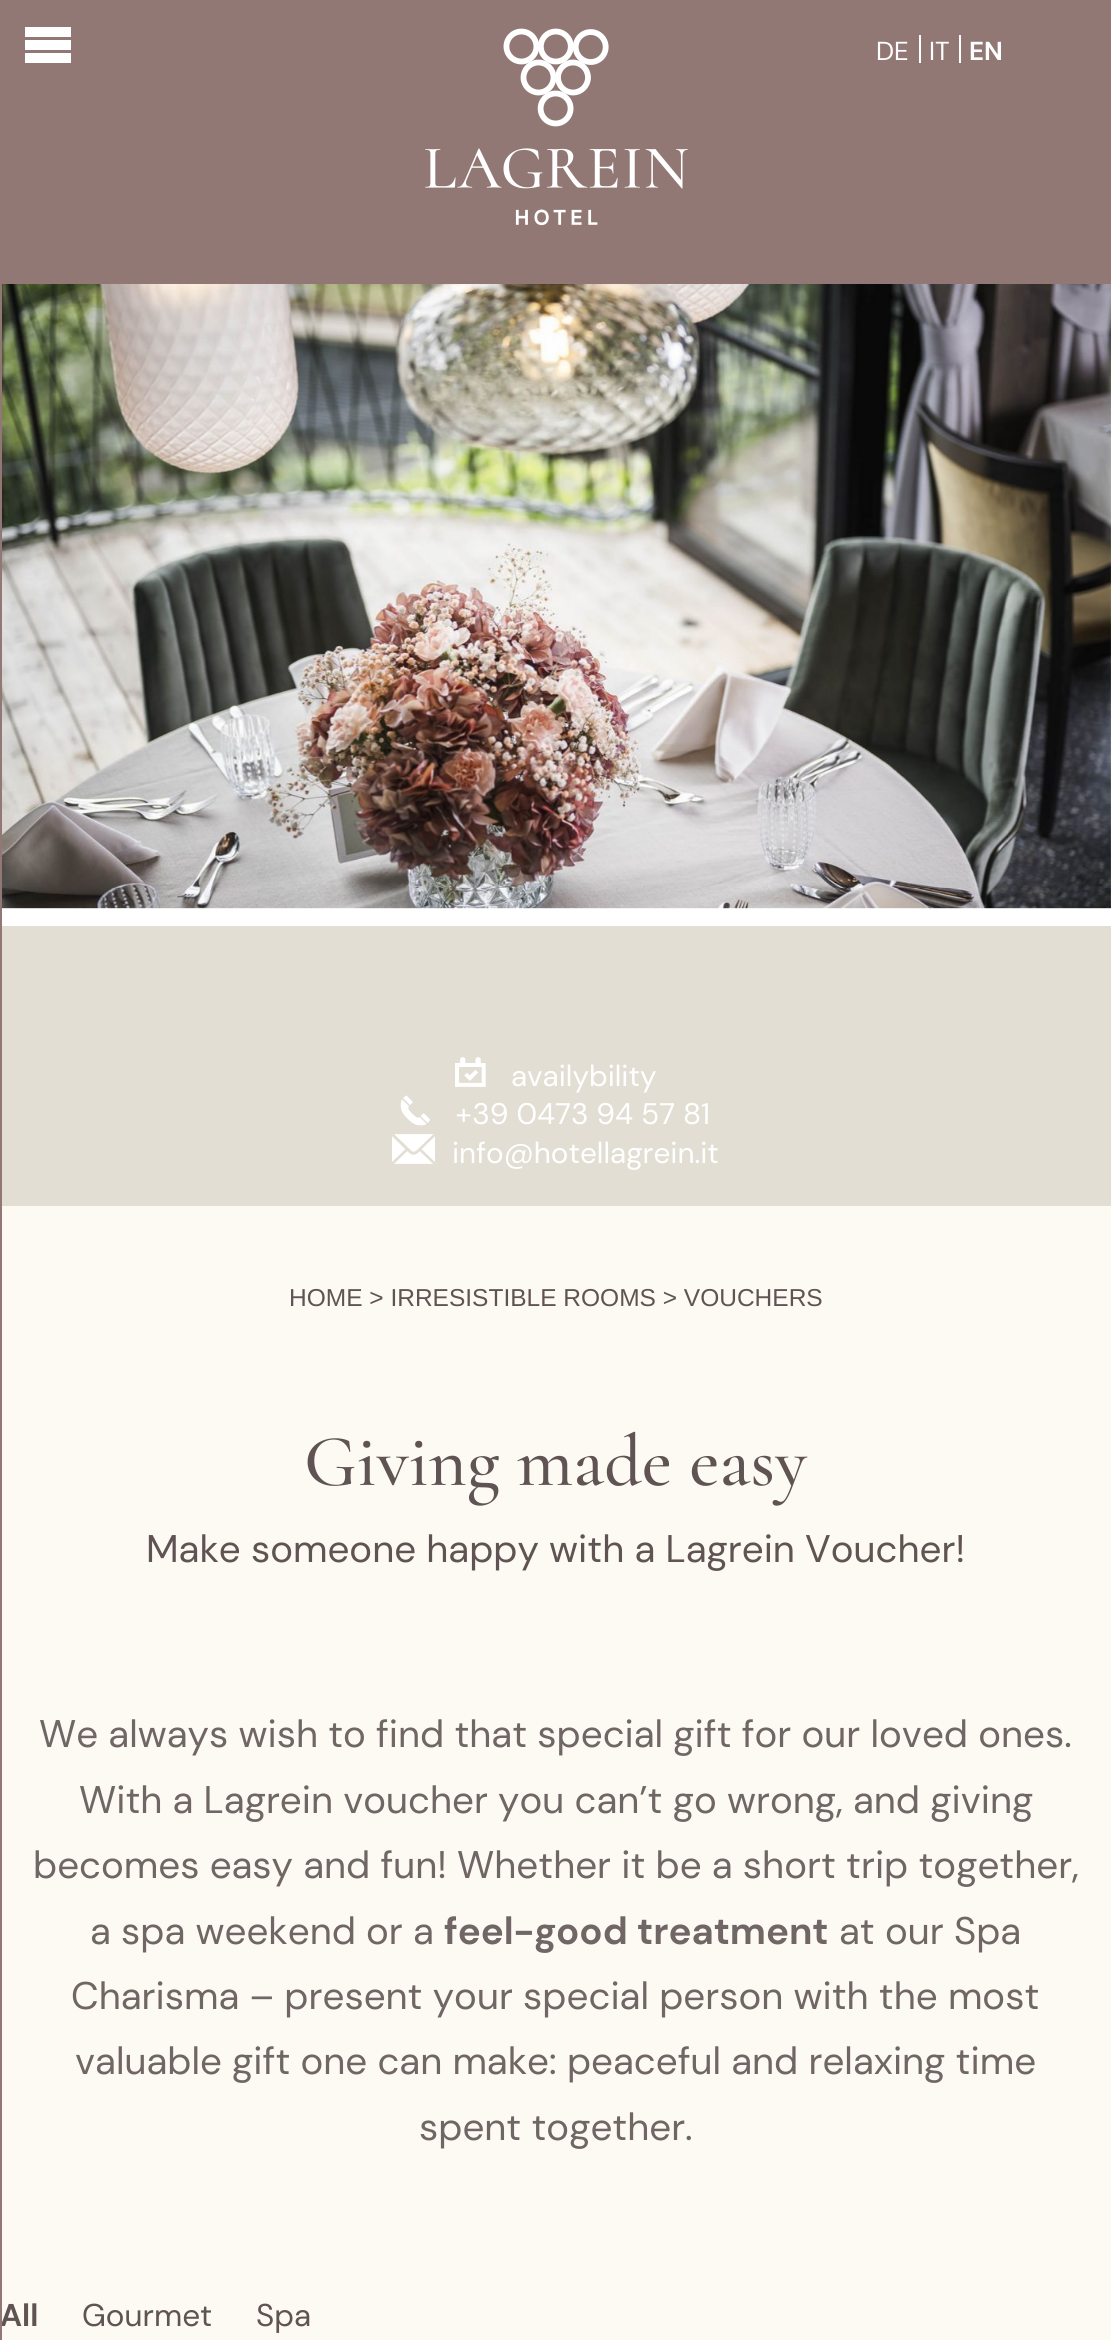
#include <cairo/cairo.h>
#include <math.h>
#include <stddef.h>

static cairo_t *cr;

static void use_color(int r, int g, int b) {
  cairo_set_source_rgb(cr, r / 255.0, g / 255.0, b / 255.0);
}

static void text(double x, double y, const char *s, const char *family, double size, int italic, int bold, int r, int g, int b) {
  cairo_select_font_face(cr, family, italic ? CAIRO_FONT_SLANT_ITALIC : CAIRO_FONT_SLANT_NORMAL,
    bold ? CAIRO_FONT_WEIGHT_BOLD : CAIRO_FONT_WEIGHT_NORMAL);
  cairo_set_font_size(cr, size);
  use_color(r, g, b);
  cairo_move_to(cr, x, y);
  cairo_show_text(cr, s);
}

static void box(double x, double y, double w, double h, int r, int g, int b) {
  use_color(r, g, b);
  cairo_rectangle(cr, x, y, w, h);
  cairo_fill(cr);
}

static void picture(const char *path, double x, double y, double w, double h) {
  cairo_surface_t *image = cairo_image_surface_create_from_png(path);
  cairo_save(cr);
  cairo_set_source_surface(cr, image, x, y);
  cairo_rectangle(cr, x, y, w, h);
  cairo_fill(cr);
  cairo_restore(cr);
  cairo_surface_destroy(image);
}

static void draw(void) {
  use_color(255, 255, 255);
  cairo_paint(cr);
  box(2, 0, 1109, 284, 145, 120, 117);
  use_color(255, 255, 255);
  cairo_new_path(cr);
  cairo_move_to(cr, 25, 27);
  cairo_line_to(cr, 71, 27);
  cairo_line_to(cr, 71, 37);
  cairo_line_to(cr, 25, 37);
  cairo_close_path(cr);
  cairo_move_to(cr, 25, 40);
  cairo_line_to(cr, 71, 40);
  cairo_line_to(cr, 71, 50);
  cairo_line_to(cr, 25, 50);
  cairo_close_path(cr);
  cairo_move_to(cr, 25, 53);
  cairo_line_to(cr, 71, 53);
  cairo_line_to(cr, 71, 63);
  cairo_line_to(cr, 25, 63);
  cairo_close_path(cr);
  cairo_fill(cr);
  picture("img_01.png", 425, 28, 263, 198);
  box(919, 35, 2, 28, 255, 255, 255);
  box(959, 35, 2, 28, 255, 255, 255);
  picture("img_02.png", 2, 284, 1109, 625);
  box(2, 926, 1109, 280, 226, 222, 212);
  picture("img_03.png", 455, 1057, 31, 30);
  picture("img_04.png", 400, 1095, 30, 31);
  picture("img_05.png", 392, 1134, 43, 30);
  box(2, 1206, 1109, 1134, 253, 249, 243);
  text(876, 60, "DE", "DM Sans", 26, 0, 0, 255, 255, 255);
  text(929, 60, "IT", "DM Sans", 26, 0, 0, 255, 255, 255);
  text(969, 60, "EN", "DM Sans", 26, 0, 1, 255, 255, 255);
  text(511, 1086, "availybility", "DM Sans", 29.75, 0, 0, 255, 255, 255);
  text(455, 1124, "+39 0473 94 57 81", "DM Sans", 29.75, 0, 0, 255, 255, 255);
  text(452, 1163, "info@hotellagrein.it", "DM Sans", 29.75, 0, 0, 255, 255, 255);
  text(289, 1306, "HOME > IRRESISTIBLE ROOMS > VOUCHERS", "Liberation Sans", 24.5, 0, 0, 95, 84, 83);
  text(304, 1485, "Giving made easy", "Cormorant Garamond Medium", 73.5, 0, 0, 95, 84, 83);
  text(146, 1562, "Make someone happy with a Lagrein Voucher!", "DM Sans", 38.5, 0, 0, 95, 84, 83);
  text(39, 1747, "We always wish to find that special gift for our loved ones.", "DM Sans", 38.5, 0, 0, 111, 102, 101);
  text(79, 1813, "With a Lagrein voucher you can’t go wrong, and giving", "DM Sans", 38.5, 0, 0, 111, 102, 101);
  text(33, 1878, "becomes easy and fun! Whether it be a short trip together,", "DM Sans", 38.5, 0, 0, 111, 102, 101);
  text(90, 1944, "a spa weekend or a", "DM Sans", 38.5, 0, 0, 111, 102, 101);
  text(444, 1944, "feel-good treatment", "DM Sans", 38.5, 0, 1, 111, 102, 101);
  text(839, 1944, "at our Spa", "DM Sans", 38.5, 0, 0, 111, 102, 101);
  text(71, 2009, "Charisma – present your special person with the most", "DM Sans", 38.5, 0, 0, 111, 102, 101);
  text(75, 2074, "valuable gift one can make: peaceful and relaxing time", "DM Sans", 38.5, 0, 0, 111, 102, 101);
  text(419, 2140, "spent together.", "DM Sans", 38.5, 0, 0, 111, 102, 101);
  text(0, 2326, "All", "DM Sans", 31.5, 0, 1, 95, 84, 83);
  box(0, 0, 2, 2340, 145, 120, 117);
  text(82, 2326, "Gourmet", "DM Sans", 31.5, 0, 0, 95, 84, 83);
  text(256, 2326, "Spa", "DM Sans", 31.5, 0, 0, 95, 84, 83);
}

int main(void) {
  cairo_surface_t *surface = cairo_image_surface_create(CAIRO_FORMAT_RGB24, 1111, 2340);
  cr = cairo_create(surface);
  cairo_font_options_t *options = cairo_font_options_create();
  cairo_font_options_set_hint_metrics(options, CAIRO_HINT_METRICS_OFF);
  cairo_font_options_set_hint_style(options, CAIRO_HINT_STYLE_NONE);
  cairo_set_font_options(cr, options);
  cairo_set_miter_limit(cr, 4);
  draw();
  cairo_surface_write_to_png(surface, "out.png");
  cairo_font_options_destroy(options);
  cairo_destroy(cr);
  cairo_surface_destroy(surface);
  return 0;
}
